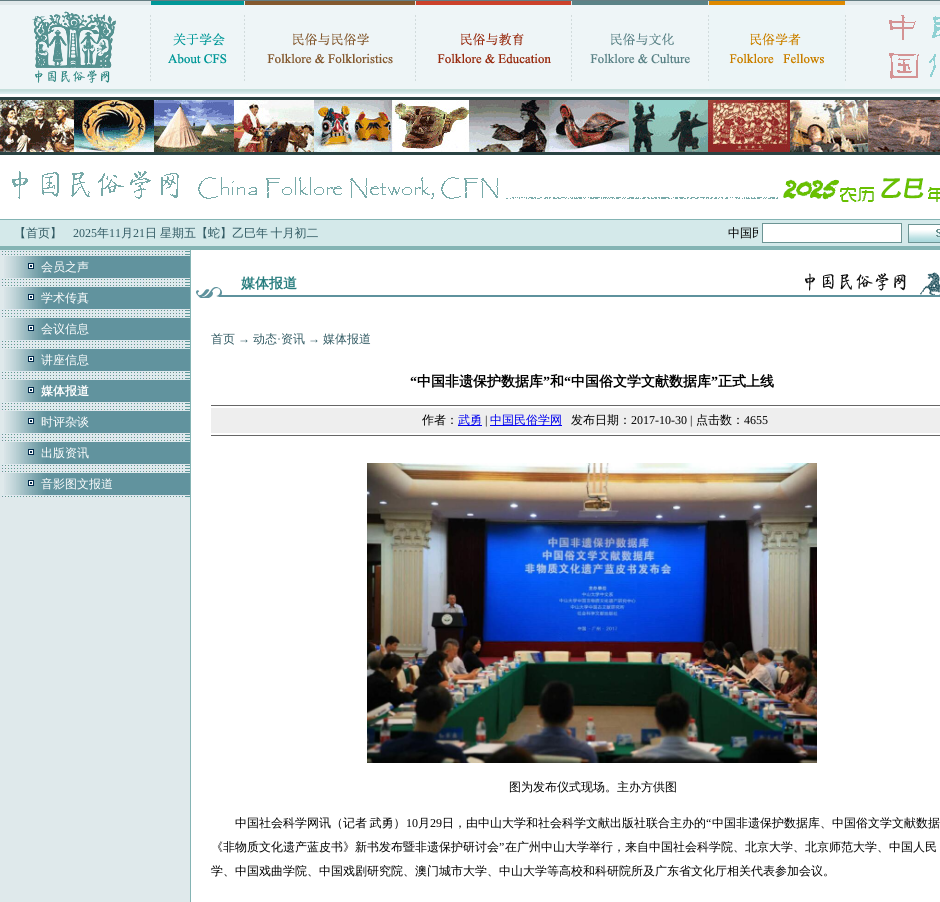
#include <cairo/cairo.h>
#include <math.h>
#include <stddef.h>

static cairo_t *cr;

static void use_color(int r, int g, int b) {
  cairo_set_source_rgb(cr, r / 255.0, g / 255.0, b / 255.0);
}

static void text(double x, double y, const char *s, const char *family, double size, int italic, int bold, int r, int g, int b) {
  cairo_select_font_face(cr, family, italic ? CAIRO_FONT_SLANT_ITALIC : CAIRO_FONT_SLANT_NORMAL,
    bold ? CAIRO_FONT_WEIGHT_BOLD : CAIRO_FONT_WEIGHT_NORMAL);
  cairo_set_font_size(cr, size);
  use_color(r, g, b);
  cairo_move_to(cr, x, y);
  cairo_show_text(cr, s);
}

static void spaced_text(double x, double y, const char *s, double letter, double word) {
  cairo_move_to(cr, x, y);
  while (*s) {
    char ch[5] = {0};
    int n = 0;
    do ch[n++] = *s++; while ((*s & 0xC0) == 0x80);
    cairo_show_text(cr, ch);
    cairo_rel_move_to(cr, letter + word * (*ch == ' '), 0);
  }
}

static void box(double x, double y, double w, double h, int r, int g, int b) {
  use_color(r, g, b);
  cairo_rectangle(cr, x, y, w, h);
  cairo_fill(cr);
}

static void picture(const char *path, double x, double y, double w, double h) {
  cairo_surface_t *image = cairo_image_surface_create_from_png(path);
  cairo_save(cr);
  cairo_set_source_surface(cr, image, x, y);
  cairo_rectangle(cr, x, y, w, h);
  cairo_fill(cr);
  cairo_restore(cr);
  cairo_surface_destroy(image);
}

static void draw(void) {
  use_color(255, 255, 255);
  cairo_paint(cr);
  picture("img_01.png", 0, 0, 150, 89);
  picture("img_02.png", 150, 0, 1, 89);
  picture("img_03.png", 151, 0, 93, 89);
  picture("img_02.png", 244, 0, 1, 89);
  picture("img_04.png", 245, 0, 170, 89);
  picture("img_02.png", 415, 0, 1, 89);
  picture("img_05.png", 416, 0, 155, 89);
  picture("img_02.png", 571, 0, 1, 89);
  picture("img_06.png", 572, 0, 136, 89);
  picture("img_02.png", 708, 0, 1, 89);
  picture("img_07.png", 709, 0, 136, 89);
  picture("img_02.png", 845, 0, 1, 89);
  picture("img_08.png", 846, 0, 94, 89);
  picture("img_09.png", 0, 89, 940, 5);
  picture("img_10.png", 0, 100, 940, 52);
  box(0, 97, 940, 3, 42, 67, 67);
  box(0, 152, 940, 3, 42, 67, 67);
  picture("img_11.png", 0, 155, 940, 64);
  box(0, 219, 940, 1, 132, 180, 180);
  box(0, 220, 940, 26, 212, 233, 234);
  use_color(255, 255, 255);
  cairo_rectangle(cr, 762.5, 223.5, 139, 19);
  cairo_fill_preserve(cr);
  use_color(108, 148, 148);
  cairo_set_line_width(cr, 1);
  cairo_stroke(cr);
  picture("img_12.png", 908, 224, 32, 19);
  box(0, 246, 940, 4, 132, 180, 180);
  box(0, 256, 190, 646, 223, 233, 235);
  box(190, 250, 1, 652, 132, 180, 180);
  picture("img_13.png", 0, 250, 190, 3);
  picture("img_13.png", 0, 253, 190, 3);
  picture("img_14.png", 4, 256, 186, 22);
  picture("img_15.png", 28, 263, 6, 6);
  picture("img_13.png", 0, 278, 190, 3);
  picture("img_13.png", 0, 281, 190, 3);
  picture("img_13.png", 0, 284, 190, 3);
  picture("img_14.png", 4, 287, 186, 22);
  picture("img_15.png", 28, 294, 6, 6);
  picture("img_13.png", 0, 309, 190, 3);
  picture("img_13.png", 0, 312, 190, 3);
  picture("img_13.png", 0, 315, 190, 3);
  picture("img_14.png", 4, 318, 186, 22);
  picture("img_15.png", 28, 325, 6, 6);
  picture("img_13.png", 0, 340, 190, 3);
  picture("img_13.png", 0, 343, 190, 3);
  picture("img_13.png", 0, 346, 190, 3);
  picture("img_14.png", 4, 349, 186, 22);
  picture("img_15.png", 28, 356, 6, 6);
  picture("img_13.png", 0, 371, 190, 3);
  picture("img_13.png", 0, 374, 190, 3);
  picture("img_13.png", 0, 377, 190, 3);
  picture("img_14.png", 4, 380, 186, 22);
  picture("img_15.png", 28, 387, 6, 6);
  picture("img_13.png", 0, 402, 190, 3);
  picture("img_13.png", 0, 405, 190, 3);
  picture("img_13.png", 0, 408, 190, 3);
  picture("img_14.png", 4, 411, 186, 22);
  picture("img_15.png", 28, 418, 6, 6);
  picture("img_13.png", 0, 433, 190, 3);
  picture("img_13.png", 0, 436, 190, 3);
  picture("img_13.png", 0, 439, 190, 3);
  picture("img_14.png", 4, 442, 186, 22);
  picture("img_15.png", 28, 449, 6, 6);
  picture("img_13.png", 0, 464, 190, 3);
  picture("img_13.png", 0, 467, 190, 3);
  picture("img_13.png", 0, 470, 190, 3);
  picture("img_14.png", 4, 473, 186, 22);
  picture("img_15.png", 28, 480, 6, 6);
  picture("img_13.png", 0, 495, 190, 3);
  picture("img_16.png", 196, 272, 744, 26);
  box(211, 405, 729, 1, 102, 102, 102);
  box(211, 408, 729, 25, 238, 238, 238);
  box(458, 425, 24, 1, 0, 0, 238);
  box(490, 425, 72, 1, 0, 0, 238);
  box(211, 435, 729, 1, 102, 102, 102);
  picture("img_17.png", 367, 463, 450, 300);
  text(14, 237, "【首页】", "WenQuanYi Zen Hei Medium", 12, 0, 0, 48, 89, 98);
  text(73, 237, "2025", "Liberation Serif", 12, 0, 0, 48, 89, 98);
  text(97, 237, "年", "WenQuanYi Zen Hei Medium", 12, 0, 0, 48, 89, 98);
  text(109, 237, "11", "Liberation Serif", 12, 0, 0, 48, 89, 98);
  text(121, 237, "月", "WenQuanYi Zen Hei Medium", 12, 0, 0, 48, 89, 98);
  text(133, 237, "21", "Liberation Serif", 12, 0, 0, 48, 89, 98);
  text(145, 237, "日", "WenQuanYi Zen Hei Medium", 12, 0, 0, 48, 89, 98);
  spaced_text(160, 237, "星期五【蛇】乙巳年 十月初二", 0, -1);
  cairo_save(cr);
  cairo_rectangle(cr, 358, 225, 400, 17);
  cairo_clip(cr);
  text(728, 237, "中国民", "WenQuanYi Zen Hei Medium", 12, 0, 0, 0, 0, 0);
  cairo_restore(cr);
  text(41, 271, "会员之声", "WenQuanYi Zen Hei Medium", 12, 0, 0, 255, 255, 255);
  text(41, 302, "学术传真", "WenQuanYi Zen Hei Medium", 12, 0, 0, 255, 255, 255);
  text(41, 333, "会议信息", "WenQuanYi Zen Hei Medium", 12, 0, 0, 255, 255, 255);
  text(41, 364, "讲座信息", "WenQuanYi Zen Hei Medium", 12, 0, 0, 255, 255, 255);
  text(41, 395, "媒体报道", "WenQuanYi Zen Hei", 12, 0, 1, 255, 255, 255);
  text(41, 426, "时评杂谈", "WenQuanYi Zen Hei Medium", 12, 0, 0, 255, 255, 255);
  text(41, 457, "出版资讯", "WenQuanYi Zen Hei Medium", 12, 0, 0, 255, 255, 255);
  text(41, 488, "音影图文报道", "WenQuanYi Zen Hei Medium", 12, 0, 0, 255, 255, 255);
  text(241, 288, "媒体报道", "WenQuanYi Zen Hei", 14, 0, 1, 38, 124, 125);
  text(211, 343, "首页", "WenQuanYi Zen Hei Medium", 12, 0, 0, 48, 89, 98);
  text(238, 343, "→", "Liberation Serif", 12, 0, 0, 48, 89, 98);
  text(253, 343, "动态", "WenQuanYi Zen Hei Medium", 12, 0, 0, 48, 89, 98);
  text(277, 343, "·", "Liberation Serif", 12, 0, 0, 48, 89, 98);
  text(281, 343, "资讯", "WenQuanYi Zen Hei Medium", 12, 0, 0, 48, 89, 98);
  text(308, 343, "→", "Liberation Serif", 12, 0, 0, 48, 89, 98);
  text(323, 343, "媒体报道", "WenQuanYi Zen Hei Medium", 12, 0, 0, 48, 89, 98);
  text(410, 386, "“", "Liberation Serif", 14, 0, 1, 0, 0, 0);
  text(417, 386, "中国非遗保护数据库", "WenQuanYi Zen Hei", 14, 0, 1, 0, 0, 0);
  text(543, 386, "”", "Liberation Serif", 14, 0, 1, 0, 0, 0);
  text(550, 386, "和", "WenQuanYi Zen Hei", 14, 0, 1, 0, 0, 0);
  text(564, 386, "“", "Liberation Serif", 14, 0, 1, 0, 0, 0);
  text(571, 386, "中国俗文学文献数据库", "WenQuanYi Zen Hei", 14, 0, 1, 0, 0, 0);
  text(711, 386, "”", "Liberation Serif", 14, 0, 1, 0, 0, 0);
  text(718, 386, "正式上线", "WenQuanYi Zen Hei", 14, 0, 1, 0, 0, 0);
  text(422, 424, "作者：", "WenQuanYi Zen Hei Medium", 12, 0, 0, 0, 0, 0);
  text(458, 424, "武勇", "WenQuanYi Zen Hei Medium", 12, 0, 0, 0, 0, 238);
  text(485, 424, "|", "Liberation Serif", 12, 0, 0, 0, 0, 0);
  text(490, 424, "中国民俗学网", "WenQuanYi Zen Hei Medium", 12, 0, 0, 0, 0, 238);
  text(571, 424, "发布日期：", "WenQuanYi Zen Hei Medium", 12, 0, 0, 0, 0, 0);
  text(631, 424, "2017-10-30 |", "Liberation Serif", 12, 0, 0, 0, 0, 0);
  text(696, 424, "点击数：", "WenQuanYi Zen Hei Medium", 12, 0, 0, 0, 0, 0);
  text(744, 424, "4655", "Liberation Serif", 12, 0, 0, 0, 0, 0);
  text(509, 791, "图为发布仪式现场。主办方供图", "WenQuanYi Zen Hei Medium", 12, 0, 0, 0, 0, 0);
  spaced_text(235, 827, "中国社会科学网讯（记者 武勇）", 0, -1);
  text(406, 827, "10", "Liberation Serif", 12, 0, 0, 0, 0, 0);
  text(418, 827, "月", "WenQuanYi Zen Hei Medium", 12, 0, 0, 0, 0, 0);
  text(430, 827, "29", "Liberation Serif", 12, 0, 0, 0, 0, 0);
  text(442, 827, "日，由中山大学和社会科学文献出版社联合主办的", "WenQuanYi Zen Hei Medium", 12, 0, 0, 0, 0, 0);
  text(706, 827, "“", "Liberation Serif", 12, 0, 0, 0, 0, 0);
  text(712, 827, "中国非遗保护数据库、中国俗文学文献数据", "WenQuanYi Zen Hei Medium", 12, 0, 0, 0, 0, 0);
  text(211, 851, "《非物质文化遗产蓝皮书》新书发布暨非遗保护研讨会", "WenQuanYi Zen Hei Medium", 12, 0, 0, 0, 0, 0);
  text(499, 851, "”", "Liberation Serif", 12, 0, 0, 0, 0, 0);
  text(505, 851, "在广州中山大学举行，来自中国社会科学院、北京大学、北京师范大学、中国人民", "WenQuanYi Zen Hei Medium", 12, 0, 0, 0, 0, 0);
  text(211, 875, "学、中国戏曲学院、中国戏剧研究院、澳门城市大学、中山大学等高校和科研院所及广东省文化厅相关代表参加会议。", "WenQuanYi Zen Hei Medium", 12, 0, 0, 0, 0, 0);
}

int main(void) {
  cairo_surface_t *surface = cairo_image_surface_create(CAIRO_FORMAT_RGB24, 940, 902);
  cr = cairo_create(surface);
  cairo_font_options_t *options = cairo_font_options_create();
  cairo_font_options_set_hint_metrics(options, CAIRO_HINT_METRICS_OFF);
  cairo_font_options_set_hint_style(options, CAIRO_HINT_STYLE_NONE);
  cairo_set_font_options(cr, options);
  cairo_set_miter_limit(cr, 4);
  draw();
  cairo_surface_write_to_png(surface, "out.png");
  cairo_font_options_destroy(options);
  cairo_destroy(cr);
  cairo_surface_destroy(surface);
  return 0;
}
